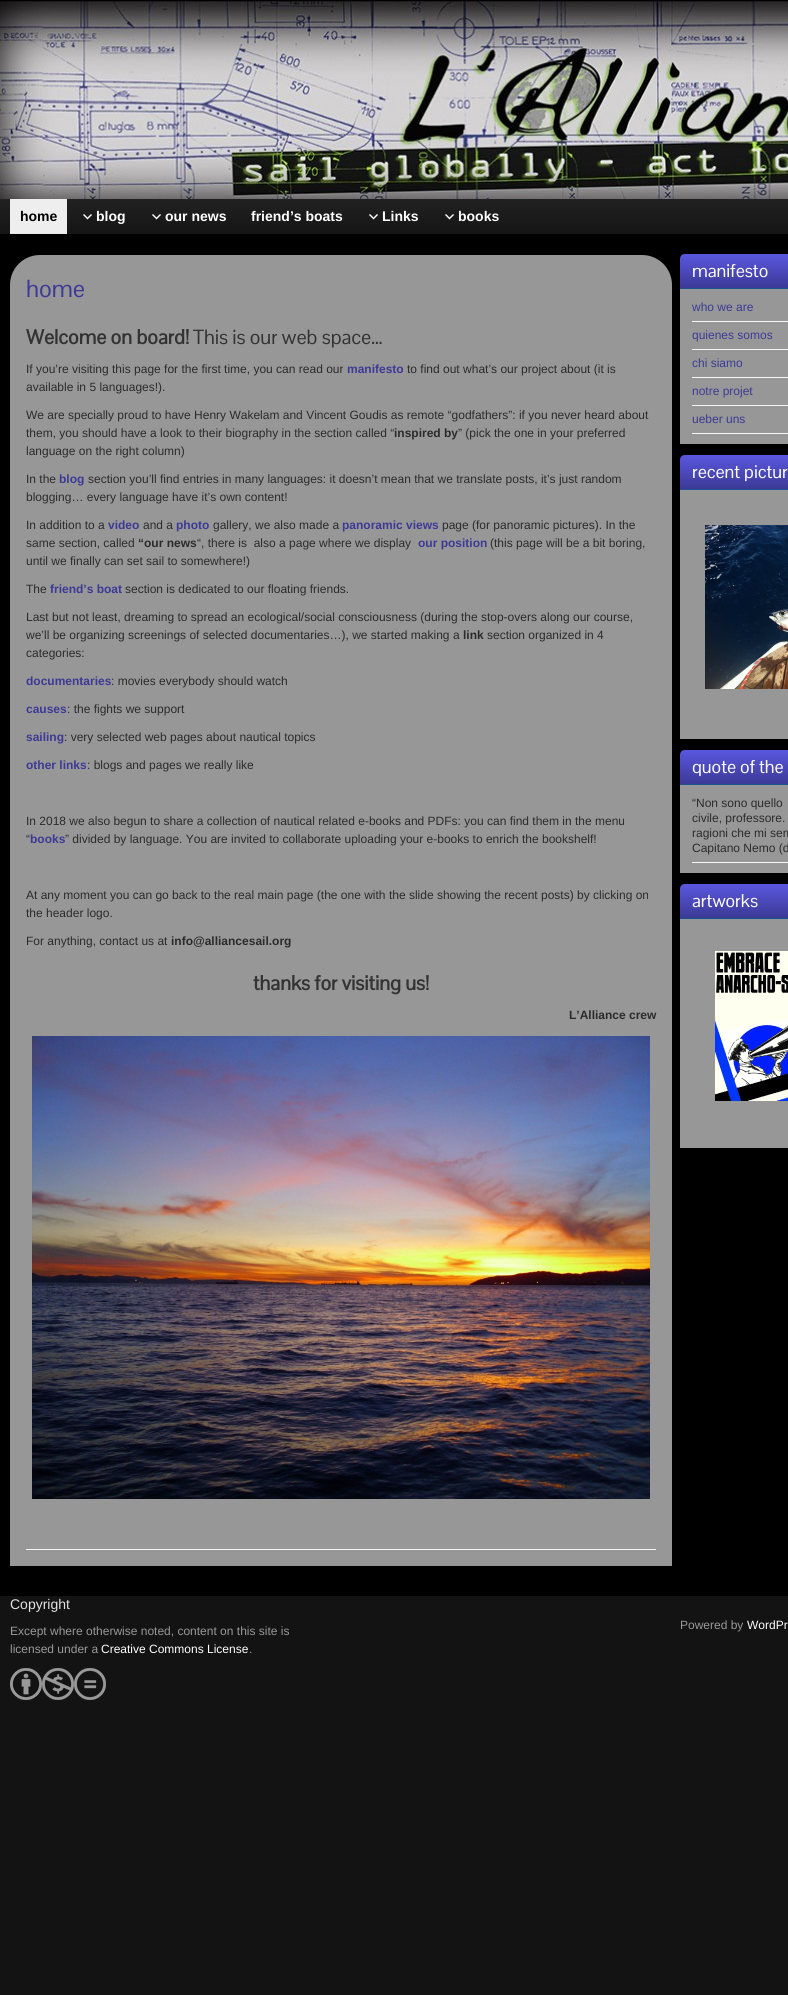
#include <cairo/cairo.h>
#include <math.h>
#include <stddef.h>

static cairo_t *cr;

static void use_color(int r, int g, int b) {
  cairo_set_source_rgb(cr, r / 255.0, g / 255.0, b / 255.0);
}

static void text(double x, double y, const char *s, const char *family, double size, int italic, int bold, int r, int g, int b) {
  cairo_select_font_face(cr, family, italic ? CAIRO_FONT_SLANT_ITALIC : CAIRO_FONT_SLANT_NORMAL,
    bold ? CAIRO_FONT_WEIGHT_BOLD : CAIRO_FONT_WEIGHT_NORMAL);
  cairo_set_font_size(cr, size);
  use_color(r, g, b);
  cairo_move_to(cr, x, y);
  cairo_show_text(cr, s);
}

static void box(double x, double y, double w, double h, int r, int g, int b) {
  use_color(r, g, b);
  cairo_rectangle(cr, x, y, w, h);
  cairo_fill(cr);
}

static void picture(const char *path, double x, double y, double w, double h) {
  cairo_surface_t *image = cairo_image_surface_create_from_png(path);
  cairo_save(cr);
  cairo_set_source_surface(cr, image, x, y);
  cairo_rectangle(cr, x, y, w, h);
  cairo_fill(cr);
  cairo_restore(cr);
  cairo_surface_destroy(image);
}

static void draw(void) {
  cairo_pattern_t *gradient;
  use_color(19, 19, 19);
  cairo_paint(cr);
  box(0, 0, 788, 1, 0, 0, 0);
  picture("img_01.png", 0, 1, 788, 198);
  picture("img_02.png", 0, 199, 788, 35);
  box(10, 199, 57, 34, 238, 238, 238);
  box(10, 233, 57, 1, 233, 233, 233);
  picture("img_03.png", 83, 214, 9, 6);
  picture("img_03.png", 152, 214, 9, 6);
  picture("img_03.png", 369, 214, 9, 6);
  picture("img_03.png", 445, 214, 9, 6);
  box(0, 234, 788, 1362, 0, 0, 0);
  use_color(151, 151, 151);
  cairo_new_path(cr);
  cairo_move_to(cr, 40, 258);
  cairo_line_to(cr, 642, 258);
  cairo_curve_to(cr, 657, 258, 669, 270, 669, 285);
  cairo_line_to(cr, 669, 1563);
  cairo_line_to(cr, 13, 1563);
  cairo_line_to(cr, 13, 285);
  cairo_curve_to(cr, 13, 270, 25, 258, 40, 258);
  cairo_close_path(cr);
  cairo_fill_preserve(cr);
  cairo_set_line_width(cr, 6);
  cairo_stroke(cr);
  picture("img_04.png", 32, 1036, 618, 463);
  box(26, 1549, 630, 1, 245, 245, 245);
  box(680, 289, 108, 155, 151, 151, 151);
  gradient = cairo_pattern_create_linear(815, 254, 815, 288);
  cairo_pattern_add_color_stop_rgba(gradient, 0, 0.353, 0.341, 0.878, 1);
  cairo_pattern_add_color_stop_rgba(gradient, 1, 0.235, 0.227, 0.584, 1);
  cairo_set_source(cr, gradient);
  cairo_pattern_destroy(gradient);
  cairo_new_path(cr);
  cairo_move_to(cr, 685, 254);
  cairo_line_to(cr, 788, 254);
  cairo_curve_to(cr, 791, 254, 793, 256, 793, 259);
  cairo_line_to(cr, 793, 288);
  cairo_line_to(cr, 680, 288);
  cairo_line_to(cr, 680, 259);
  cairo_curve_to(cr, 680, 256, 682, 254, 685, 254);
  cairo_close_path(cr);
  cairo_fill(cr);
  box(680, 288, 108, 1, 25, 83, 146);
  box(692, 321, 96, 1, 245, 245, 245);
  box(692, 349, 96, 1, 245, 245, 245);
  box(692, 377, 96, 1, 245, 245, 245);
  box(692, 405, 96, 1, 245, 245, 245);
  box(692, 433, 96, 1, 245, 245, 245);
  box(680, 490, 108, 249, 151, 151, 151);
  gradient = cairo_pattern_create_linear(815, 455, 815, 489);
  cairo_pattern_add_color_stop_rgba(gradient, 0, 0.353, 0.341, 0.878, 1);
  cairo_pattern_add_color_stop_rgba(gradient, 1, 0.235, 0.227, 0.584, 1);
  cairo_set_source(cr, gradient);
  cairo_pattern_destroy(gradient);
  cairo_new_path(cr);
  cairo_move_to(cr, 685, 455);
  cairo_line_to(cr, 788, 455);
  cairo_curve_to(cr, 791, 455, 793, 457, 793, 460);
  cairo_line_to(cr, 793, 489);
  cairo_line_to(cr, 680, 489);
  cairo_line_to(cr, 680, 460);
  cairo_curve_to(cr, 680, 457, 682, 455, 685, 455);
  cairo_close_path(cr);
  cairo_fill(cr);
  box(680, 489, 108, 1, 25, 83, 146);
  picture("img_05.png", 705, 525, 83, 164);
  box(680, 785, 108, 88, 151, 151, 151);
  gradient = cairo_pattern_create_linear(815, 750, 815, 784);
  cairo_pattern_add_color_stop_rgba(gradient, 0, 0.353, 0.341, 0.878, 1);
  cairo_pattern_add_color_stop_rgba(gradient, 1, 0.235, 0.227, 0.584, 1);
  cairo_set_source(cr, gradient);
  cairo_pattern_destroy(gradient);
  cairo_new_path(cr);
  cairo_move_to(cr, 685, 750);
  cairo_line_to(cr, 788, 750);
  cairo_curve_to(cr, 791, 750, 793, 752, 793, 755);
  cairo_line_to(cr, 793, 784);
  cairo_line_to(cr, 680, 784);
  cairo_line_to(cr, 680, 755);
  cairo_curve_to(cr, 680, 752, 682, 750, 685, 750);
  cairo_close_path(cr);
  cairo_fill(cr);
  box(680, 784, 108, 1, 25, 83, 146);
  box(692, 862, 96, 1, 245, 245, 245);
  box(680, 919, 108, 229, 151, 151, 151);
  gradient = cairo_pattern_create_linear(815, 884, 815, 918);
  cairo_pattern_add_color_stop_rgba(gradient, 0, 0.353, 0.341, 0.878, 1);
  cairo_pattern_add_color_stop_rgba(gradient, 1, 0.235, 0.227, 0.584, 1);
  cairo_set_source(cr, gradient);
  cairo_pattern_destroy(gradient);
  cairo_new_path(cr);
  cairo_move_to(cr, 685, 884);
  cairo_line_to(cr, 788, 884);
  cairo_curve_to(cr, 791, 884, 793, 886, 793, 889);
  cairo_line_to(cr, 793, 918);
  cairo_line_to(cr, 680, 918);
  cairo_line_to(cr, 680, 889);
  cairo_curve_to(cr, 680, 886, 682, 884, 685, 884);
  cairo_close_path(cr);
  cairo_fill(cr);
  box(680, 918, 108, 1, 25, 83, 146);
  picture("img_06.png", 715, 951, 73, 150);
  picture("img_07.png", 10, 1668, 96, 32);
  text(20, 221, "home", "Liberation Sans", 14, 0, 1, 0, 0, 0);
  text(96, 221, "blog", "Liberation Sans", 14, 0, 1, 255, 255, 255);
  text(165, 221, "our news", "Liberation Sans", 14, 0, 1, 255, 255, 255);
  text(251, 221, "friend’s boats", "Liberation Sans", 14, 0, 1, 255, 255, 255);
  text(382, 221, "Links", "Liberation Sans", 14, 0, 1, 255, 255, 255);
  text(458, 221, "books", "Liberation Sans", 14, 0, 1, 255, 255, 255);
  text(26, 297, "home", "Pontano Sans", 24, 0, 0, 60, 58, 149);
  text(26, 344, "Welcome on board!", "Pontano Sans", 20, 0, 1, 51, 51, 51);
  text(193, 344, "This is our web space…", "Pontano Sans", 20, 0, 0, 51, 51, 51);
  text(26, 373, "If you’re visiting this page for the first time, you can read our", "Liberation Sans", 12, 0, 0, 44, 43, 43);
  text(347, 373, "manifesto", "Liberation Sans", 12, 0, 1, 60, 58, 149);
  text(407, 373, "to find out what’s our project about (it is", "Liberation Sans", 12, 0, 0, 44, 43, 43);
  text(26, 391, "available in 5 languages!).", "Liberation Sans", 12, 0, 0, 44, 43, 43);
  text(26, 419, "We are specially proud to have Henry Wakelam and Vincent Goudis as remote “godfathers”: if you never heard about", "Liberation Sans", 12, 0, 0, 44, 43, 43);
  text(26, 437, "them, you should have a look to their biography in the section called “", "Liberation Sans", 12, 0, 0, 44, 43, 43);
  text(394, 437, "inspired by", "Liberation Sans", 12, 0, 1, 44, 43, 43);
  text(458, 437, "” (pick the one in your preferred", "Liberation Sans", 12, 0, 0, 44, 43, 43);
  text(26, 455, "language on the right column)", "Liberation Sans", 12, 0, 0, 44, 43, 43);
  text(26, 483, "In the", "Liberation Sans", 12, 0, 0, 44, 43, 43);
  text(59, 483, "blog", "Liberation Sans", 12, 0, 1, 60, 58, 149);
  text(88, 483, "section you’ll find entries in many languages: it doesn’t mean that we translate posts, it’s just random", "Liberation Sans", 12, 0, 0, 44, 43, 43);
  text(26, 501, "blogging… every language have it’s own content!", "Liberation Sans", 12, 0, 0, 44, 43, 43);
  text(26, 529, "In addition to a", "Liberation Sans", 12, 0, 0, 44, 43, 43);
  text(108, 529, "video", "Liberation Sans", 12, 0, 1, 60, 58, 149);
  text(143, 529, "and a", "Liberation Sans", 12, 0, 0, 44, 43, 43);
  text(176, 529, "photo", "Liberation Sans", 12, 0, 1, 60, 58, 149);
  text(213, 529, "gallery, we also made a", "Liberation Sans", 12, 0, 0, 44, 43, 43);
  text(342, 529, "panoramic views", "Liberation Sans", 12, 0, 1, 60, 58, 149);
  text(442, 529, "page (for panoramic pictures). In the", "Liberation Sans", 12, 0, 0, 44, 43, 43);
  text(26, 547, "same section, called", "Liberation Sans", 12, 0, 0, 44, 43, 43);
  text(138, 547, "“our news", "Liberation Sans", 12, 0, 1, 44, 43, 43);
  text(197, 547, "“, there is  also a page where we display", "Liberation Sans", 12, 0, 0, 44, 43, 43);
  text(418, 547, "our position", "Liberation Sans", 12, 0, 1, 60, 58, 149);
  text(490, 547, "(this page will be a bit boring,", "Liberation Sans", 12, 0, 0, 44, 43, 43);
  text(26, 565, "until we finally can set sail to somewhere!)", "Liberation Sans", 12, 0, 0, 44, 43, 43);
  text(26, 593, "The", "Liberation Sans", 12, 0, 0, 44, 43, 43);
  text(50, 593, "friend’s boat", "Liberation Sans", 12, 0, 1, 60, 58, 149);
  text(125, 593, "section is dedicated to our floating friends.", "Liberation Sans", 12, 0, 0, 44, 43, 43);
  text(26, 621, "Last but not least, dreaming to spread an ecological/social consciousness (during the stop-overs along our course,", "Liberation Sans", 12, 0, 0, 44, 43, 43);
  text(26, 639, "we’ll be organizing screenings of selected documentaries…), we started making a", "Liberation Sans", 12, 0, 0, 44, 43, 43);
  text(463, 639, "link", "Liberation Sans", 12, 0, 1, 44, 43, 43);
  text(487, 639, "section organized in 4", "Liberation Sans", 12, 0, 0, 44, 43, 43);
  text(26, 657, "categories:", "Liberation Sans", 12, 0, 0, 44, 43, 43);
  text(26, 685, "documentaries", "Liberation Sans", 12, 0, 1, 60, 58, 149);
  text(111, 685, ": movies everybody should watch", "Liberation Sans", 12, 0, 0, 44, 43, 43);
  text(26, 713, "causes", "Liberation Sans", 12, 0, 1, 60, 58, 149);
  text(67, 713, ": the fights we support", "Liberation Sans", 12, 0, 0, 44, 43, 43);
  text(26, 741, "sailing", "Liberation Sans", 12, 0, 1, 60, 58, 149);
  text(64, 741, ": very selected web pages about nautical topics", "Liberation Sans", 12, 0, 0, 44, 43, 43);
  text(26, 769, "other links", "Liberation Sans", 12, 0, 1, 60, 58, 149);
  text(87, 769, ": blogs and pages we really like", "Liberation Sans", 12, 0, 0, 44, 43, 43);
  text(26, 825, "In 2018 we also begun to share a collection of nautical related e-books and PDFs: you can find them in the menu", "Liberation Sans", 12, 0, 0, 44, 43, 43);
  text(26, 843, "“", "Liberation Sans", 12, 0, 0, 44, 43, 43);
  text(30, 843, "books", "Liberation Sans", 12, 0, 1, 60, 58, 149);
  text(65, 843, "” divided by language. You are invited to collaborate uploading your e-books to enrich the bookshelf!", "Liberation Sans", 12, 0, 0, 44, 43, 43);
  text(26, 899, "At any moment you can go back to the real main page (the one with the slide showing the recent posts) by clicking on", "Liberation Sans", 12, 0, 0, 44, 43, 43);
  text(26, 917, "the header logo.", "Liberation Sans", 12, 0, 0, 44, 43, 43);
  text(26, 945, "For anything, contact us at", "Liberation Sans", 12, 0, 0, 44, 43, 43);
  text(171, 945, "info@alliancesail.org", "Liberation Sans", 12, 0, 1, 44, 43, 43);
  text(253, 990, "thanks for visiting us!", "Pontano Sans", 20, 0, 1, 51, 51, 51);
  text(569, 1019, "L’Alliance crew", "Liberation Sans", 12, 0, 1, 44, 43, 43);
  text(692, 277, "manifesto", "Pontano Sans", 18, 0, 0, 255, 255, 255);
  text(692, 311, "who we are", "Liberation Sans", 12, 0, 0, 60, 58, 149);
  text(692, 339, "quienes somos", "Liberation Sans", 12, 0, 0, 60, 58, 149);
  text(692, 367, "chi siamo", "Liberation Sans", 12, 0, 0, 60, 58, 149);
  text(692, 395, "notre projet", "Liberation Sans", 12, 0, 0, 60, 58, 149);
  text(692, 423, "ueber uns", "Liberation Sans", 12, 0, 0, 60, 58, 149);
  text(692, 478, "recent pictur", "Pontano Sans", 18, 0, 0, 255, 255, 255);
  text(692, 773, "quote of the", "Pontano Sans", 18, 0, 0, 255, 255, 255);
  text(692, 807, "“Non sono quello", "Liberation Sans", 12, 0, 0, 44, 43, 43);
  text(692, 822, "civile, professore.", "Liberation Sans", 12, 0, 0, 44, 43, 43);
  text(692, 837, "ragioni che mi sem", "Liberation Sans", 12, 0, 0, 44, 43, 43);
  text(692, 852, "Capitano Nemo (d", "Liberation Sans", 12, 0, 0, 44, 43, 43);
  text(692, 907, "artworks", "Pontano Sans", 18, 0, 0, 255, 255, 255);
  text(10, 1609, "Copyright", "Liberation Sans", 14, 0, 0, 227, 227, 227);
  text(10, 1635, "Except where otherwise noted, content on this site is", "Liberation Sans", 12, 0, 0, 153, 153, 153);
  text(10, 1653, "licensed under a", "Liberation Sans", 12, 0, 0, 153, 153, 153);
  text(101, 1653, "Creative Commons License", "Liberation Sans", 12, 0, 0, 255, 255, 255);
  text(249, 1653, ".", "Liberation Sans", 12, 0, 0, 153, 153, 153);
  text(680, 1629, "Powered by", "Liberation Sans", 12, 0, 0, 153, 153, 153);
  text(747, 1629, "WordPr", "Liberation Sans", 12, 0, 0, 255, 255, 255);
}

int main(void) {
  cairo_surface_t *surface = cairo_image_surface_create(CAIRO_FORMAT_RGB24, 788, 1995);
  cr = cairo_create(surface);
  cairo_font_options_t *options = cairo_font_options_create();
  cairo_font_options_set_hint_metrics(options, CAIRO_HINT_METRICS_OFF);
  cairo_font_options_set_hint_style(options, CAIRO_HINT_STYLE_NONE);
  cairo_set_font_options(cr, options);
  cairo_set_miter_limit(cr, 4);
  draw();
  cairo_surface_write_to_png(surface, "out.png");
  cairo_font_options_destroy(options);
  cairo_destroy(cr);
  cairo_surface_destroy(surface);
  return 0;
}
